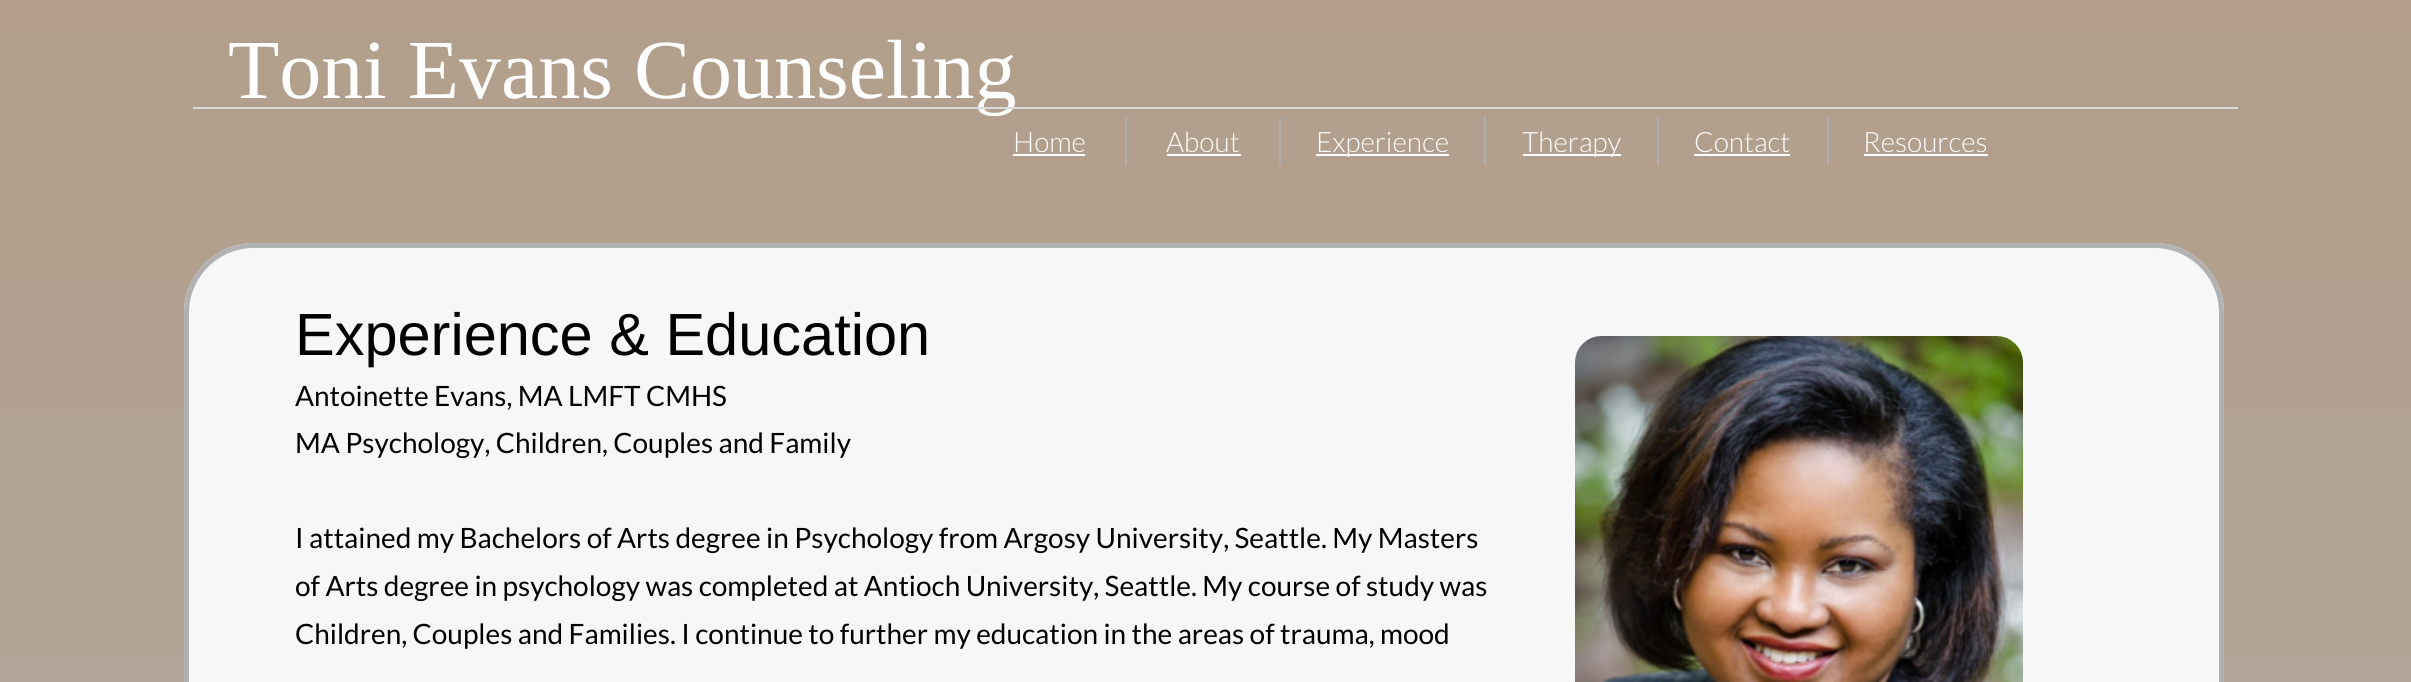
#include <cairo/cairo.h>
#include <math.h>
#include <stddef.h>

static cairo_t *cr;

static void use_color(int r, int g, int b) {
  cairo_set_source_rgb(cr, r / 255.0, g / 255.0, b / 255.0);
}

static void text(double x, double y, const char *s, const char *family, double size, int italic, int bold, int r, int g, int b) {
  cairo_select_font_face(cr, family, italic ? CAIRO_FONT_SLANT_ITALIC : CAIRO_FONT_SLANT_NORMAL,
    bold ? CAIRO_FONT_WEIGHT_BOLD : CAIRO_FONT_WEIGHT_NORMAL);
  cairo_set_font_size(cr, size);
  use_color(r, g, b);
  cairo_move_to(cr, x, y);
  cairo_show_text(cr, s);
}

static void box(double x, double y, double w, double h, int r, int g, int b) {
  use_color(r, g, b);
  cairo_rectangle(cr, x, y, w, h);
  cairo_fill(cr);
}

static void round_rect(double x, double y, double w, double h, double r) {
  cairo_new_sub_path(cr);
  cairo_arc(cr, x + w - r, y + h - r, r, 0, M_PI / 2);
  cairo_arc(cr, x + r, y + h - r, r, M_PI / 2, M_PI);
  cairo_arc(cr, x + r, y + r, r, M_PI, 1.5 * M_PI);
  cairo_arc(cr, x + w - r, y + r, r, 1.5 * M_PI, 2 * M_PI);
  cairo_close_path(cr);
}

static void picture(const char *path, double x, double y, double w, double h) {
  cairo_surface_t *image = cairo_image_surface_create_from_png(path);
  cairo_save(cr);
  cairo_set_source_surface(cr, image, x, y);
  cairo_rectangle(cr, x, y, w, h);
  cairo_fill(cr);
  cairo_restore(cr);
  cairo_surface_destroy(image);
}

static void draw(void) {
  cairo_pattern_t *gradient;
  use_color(255, 255, 255);
  cairo_paint(cr);
  gradient = cairo_pattern_create_linear(1206, 0, 1206, 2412);
  cairo_pattern_add_color_stop_rgba(gradient, 0, 0.698, 0.62, 0.545, 1);
  cairo_pattern_add_color_stop_rgba(gradient, 1, 0.698, 0.698, 0.698, 1);
  cairo_set_source(cr, gradient);
  cairo_pattern_destroy(gradient);
  cairo_rectangle(cr, 0, 0, 2411, 682);
  cairo_fill(cr);
  box(1125, 117, 2, 48, 174, 174, 174);
  box(1013, 154, 72, 2, 255, 255, 255);
  box(1279, 117, 2, 48, 174, 174, 174);
  box(1167, 154, 74, 2, 255, 255, 255);
  box(1484, 117, 2, 48, 174, 174, 174);
  box(1316, 154, 133, 2, 255, 255, 255);
  box(1657, 117, 2, 48, 174, 174, 174);
  box(1523, 154, 98, 2, 255, 255, 255);
  box(1827, 117, 2, 48, 174, 174, 174);
  box(1694, 154, 96, 2, 255, 255, 255);
  box(1864, 154, 124, 2, 255, 255, 255);
  use_color(247, 247, 247);
  cairo_new_path(cr);
  cairo_move_to(cr, 254, 243);
  cairo_line_to(cr, 2154, 243);
  cairo_curve_to(cr, 2192.5, 243, 2224, 274.5, 2224, 313);
  cairo_line_to(cr, 2224, 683);
  cairo_line_to(cr, 184, 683);
  cairo_line_to(cr, 184, 313);
  cairo_curve_to(cr, 184, 274.5, 215.5, 243, 254, 243);
  cairo_close_path(cr);
  cairo_fill(cr);
  round_rect(186.5, 245.5, 2035, 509, 67.5);
  use_color(178, 178, 178);
  cairo_set_line_width(cr, 5);
  cairo_stroke(cr);
  picture("img_01.png", 1575, 336, 448, 346);
  text(228, 98, "Toni Evans Counseling", "Liberation Serif", 84, 0, 0, 255, 255, 255);
  box(193, 107, 2045, 2, 218, 218, 218);
  text(1013, 152, "Home", "Lato Light", 28, 0, 0, 255, 255, 255);
  text(1166, 152, "About", "Lato Light", 28, 0, 0, 255, 255, 255);
  text(1316, 152, "Experience", "Lato Light", 28, 0, 0, 255, 255, 255);
  text(1522, 152, "Therapy", "Lato Light", 28, 0, 0, 255, 255, 255);
  text(1694, 152, "Contact", "Lato Light", 28, 0, 0, 255, 255, 255);
  text(1863, 152, "Resources", "Lato Light", 28, 0, 0, 255, 255, 255);
  text(295, 355, "Experience & Education", "Liberation Sans", 59.5, 0, 0, 0, 0, 0);
  text(295, 406, "Antoinette Evans, MA LMFT CMHS", "Lato", 28, 0, 0, 0, 0, 0);
  text(295, 453, "MA Psychology, Children, Couples and Family", "Lato", 28, 0, 0, 0, 0, 0);
  text(295, 548, "I attained my Bachelors of Arts degree in Psychology from Argosy University, Seattle. My Masters", "Lato", 28, 0, 0, 0, 0, 0);
  text(295, 596, "of Arts degree in psychology was completed at Antioch University, Seattle. My course of study was", "Lato", 28, 0, 0, 0, 0, 0);
  text(295, 644, "Children, Couples and Families. I continue to further my education in the areas of trauma, mood", "Lato", 28, 0, 0, 0, 0, 0);
}

int main(void) {
  cairo_surface_t *surface = cairo_image_surface_create(CAIRO_FORMAT_RGB24, 2411, 682);
  cr = cairo_create(surface);
  cairo_font_options_t *options = cairo_font_options_create();
  cairo_font_options_set_hint_metrics(options, CAIRO_HINT_METRICS_OFF);
  cairo_font_options_set_hint_style(options, CAIRO_HINT_STYLE_NONE);
  cairo_set_font_options(cr, options);
  cairo_set_miter_limit(cr, 4);
  draw();
  cairo_surface_write_to_png(surface, "out.png");
  cairo_font_options_destroy(options);
  cairo_destroy(cr);
  cairo_surface_destroy(surface);
  return 0;
}
